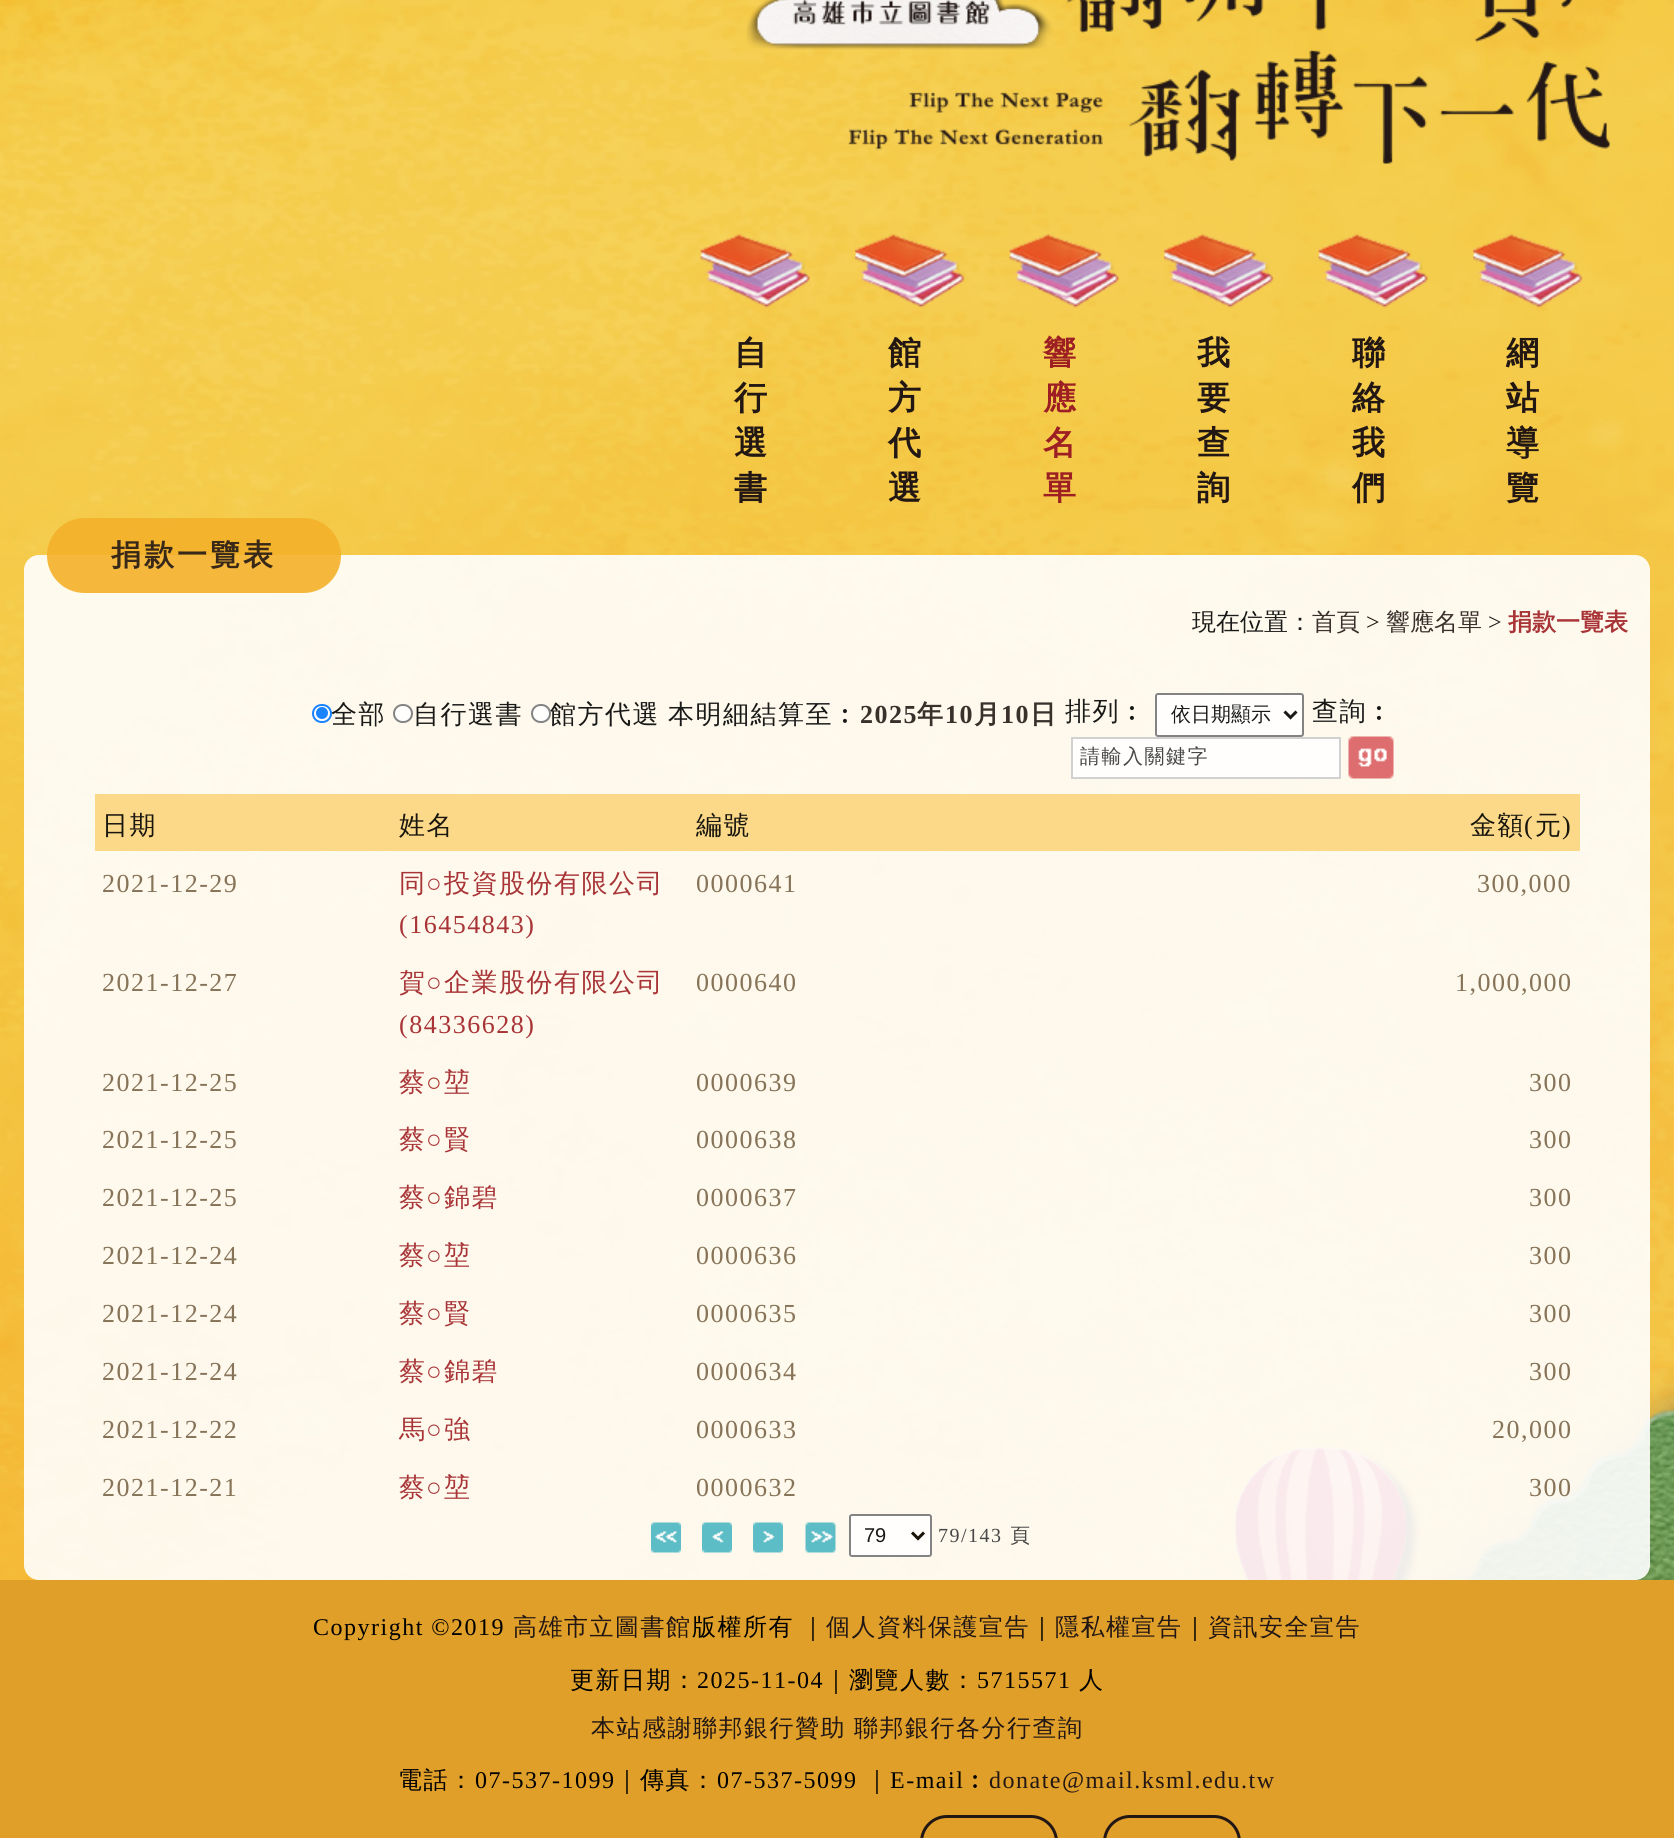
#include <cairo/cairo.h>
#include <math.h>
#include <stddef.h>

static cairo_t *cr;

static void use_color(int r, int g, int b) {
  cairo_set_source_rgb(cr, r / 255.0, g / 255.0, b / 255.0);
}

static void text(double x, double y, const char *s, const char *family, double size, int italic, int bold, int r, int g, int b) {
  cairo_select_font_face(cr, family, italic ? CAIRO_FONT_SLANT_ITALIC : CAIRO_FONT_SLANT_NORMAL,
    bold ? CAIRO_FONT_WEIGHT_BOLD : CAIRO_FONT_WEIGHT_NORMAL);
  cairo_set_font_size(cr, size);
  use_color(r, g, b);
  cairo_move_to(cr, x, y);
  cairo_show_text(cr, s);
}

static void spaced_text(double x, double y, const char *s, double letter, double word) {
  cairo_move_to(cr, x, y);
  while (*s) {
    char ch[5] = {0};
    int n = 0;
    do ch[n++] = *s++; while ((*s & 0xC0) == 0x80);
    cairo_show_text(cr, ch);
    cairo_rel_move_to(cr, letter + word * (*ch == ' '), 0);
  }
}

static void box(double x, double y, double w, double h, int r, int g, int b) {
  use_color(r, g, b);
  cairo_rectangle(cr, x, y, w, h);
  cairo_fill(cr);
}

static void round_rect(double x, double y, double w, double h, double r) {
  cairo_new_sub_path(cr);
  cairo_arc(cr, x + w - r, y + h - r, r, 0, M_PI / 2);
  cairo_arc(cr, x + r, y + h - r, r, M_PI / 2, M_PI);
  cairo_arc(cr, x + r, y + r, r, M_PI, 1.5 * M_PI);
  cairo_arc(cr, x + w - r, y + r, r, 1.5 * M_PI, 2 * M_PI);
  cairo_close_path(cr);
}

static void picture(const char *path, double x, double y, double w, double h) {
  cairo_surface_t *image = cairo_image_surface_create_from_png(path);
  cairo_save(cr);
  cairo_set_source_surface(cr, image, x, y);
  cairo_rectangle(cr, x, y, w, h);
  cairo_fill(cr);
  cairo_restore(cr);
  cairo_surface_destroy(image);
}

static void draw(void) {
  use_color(255, 255, 255);
  cairo_paint(cr);
  picture("img_01.png", 0, 0, 1674, 1580);
  picture("img_02.png", 1234, 1367, 440, 213);
  picture("img_03.png", 746, 0, 864, 164);
  picture("img_04.png", 700, 233, 111, 75);
  picture("img_05.png", 855, 233, 110, 75);
  picture("img_06.png", 1009, 233, 111, 75);
  picture("img_07.png", 1164, 233, 110, 75);
  picture("img_08.png", 1318, 233, 111, 75);
  picture("img_09.png", 1473, 233, 110, 75);
  cairo_set_source_rgba(cr, 1, 1, 1, 0.9);
  round_rect(24, 555, 1626, 1025, 15);
  cairo_fill(cr);
  cairo_set_source_rgba(cr, 0.957, 0.694, 0.165, 0.9);
  round_rect(47, 518, 294, 75, 37.5);
  cairo_fill(cr);
  use_color(255, 254, 253);
  round_rect(312, 704, 20, 19, 9.5);
  cairo_fill(cr);
  round_rect(313, 705, 18, 17, 8.5);
  cairo_set_source_rgba(cr, 0, 0.459, 1, 0.9);
  cairo_stroke(cr);
  use_color(26, 131, 255);
  cairo_arc(cr, 322, 713, 6, 0, 2 * M_PI);
  cairo_fill(cr);
  use_color(255, 254, 253);
  round_rect(393, 704, 20, 19, 9.5);
  cairo_fill(cr);
  round_rect(394, 705, 18, 17, 8.5);
  cairo_set_source_rgba(cr, 0.463, 0.463, 0.463, 0.9);
  cairo_stroke(cr);
  use_color(255, 254, 253);
  round_rect(531, 704, 20, 19, 9.5);
  cairo_fill(cr);
  round_rect(532, 705, 18, 17, 8.5);
  cairo_set_source_rgba(cr, 0.463, 0.463, 0.463, 0.9);
  cairo_stroke(cr);
  use_color(255, 254, 253);
  round_rect(1155, 693, 149, 44, 3);
  cairo_fill(cr);
  round_rect(1156, 694, 147, 42, 2);
  cairo_set_source_rgba(cr, 0.463, 0.463, 0.463, 0.9);
  cairo_stroke(cr);
  cairo_new_path(cr);
  cairo_move_to(cr, 1284.5, 711.5);
  cairo_line_to(cr, 1290.5, 717.5);
  cairo_line_to(cr, 1296.5, 711.5);
  use_color(26, 25, 25);
  cairo_set_line_width(cr, 3);
  cairo_stroke(cr);
  use_color(255, 254, 253);
  cairo_rectangle(cr, 1072, 738, 268, 40);
  cairo_fill_preserve(cr);
  use_color(209, 209, 209);
  cairo_set_line_width(cr, 2);
  cairo_stroke(cr);
  picture("img_10.png", 1348, 736, 46, 43);
  box(95, 794, 1485, 57, 251, 217, 137);
  picture("img_11.png", 651, 1522, 30, 31);
  picture("img_12.png", 702, 1522, 30, 31);
  picture("img_13.png", 753, 1522, 30, 31);
  picture("img_14.png", 805, 1522, 31, 31);
  use_color(255, 254, 253);
  round_rect(849, 1514, 83, 43, 3);
  cairo_fill(cr);
  round_rect(850, 1515, 81, 41, 2);
  cairo_set_source_rgba(cr, 0.463, 0.463, 0.463, 0.9);
  cairo_stroke(cr);
  cairo_new_path(cr);
  cairo_move_to(cr, 912, 1532.5);
  cairo_line_to(cr, 918, 1538.5);
  cairo_line_to(cr, 924, 1532.5);
  use_color(24, 19, 6);
  cairo_set_line_width(cr, 3);
  cairo_stroke(cr);
  box(0, 1580, 1674, 258, 224, 159, 41);
  round_rect(921.5, 1816.5, 135, 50, 25.5);
  use_color(35, 23, 20);
  cairo_stroke(cr);
  round_rect(1104.5, 1816.5, 135, 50, 25.5);
  cairo_stroke(cr);
  text(734, 364, "自", "WenQuanYi Zen Hei", 33, 0, 1, 35, 23, 20);
  text(734, 409, "行", "WenQuanYi Zen Hei", 33, 0, 1, 35, 23, 20);
  text(734, 454, "選", "WenQuanYi Zen Hei", 33, 0, 1, 35, 23, 20);
  text(734, 499, "書", "WenQuanYi Zen Hei", 33, 0, 1, 35, 23, 20);
  text(888, 364, "館", "WenQuanYi Zen Hei", 33, 0, 1, 35, 23, 20);
  text(888, 409, "方", "WenQuanYi Zen Hei", 33, 0, 1, 35, 23, 20);
  text(888, 454, "代", "WenQuanYi Zen Hei", 33, 0, 1, 35, 23, 20);
  text(888, 499, "選", "WenQuanYi Zen Hei", 33, 0, 1, 35, 23, 20);
  text(1043, 364, "響", "WenQuanYi Zen Hei", 33, 0, 1, 157, 30, 35);
  text(1043, 409, "應", "WenQuanYi Zen Hei", 33, 0, 1, 157, 30, 35);
  text(1043, 454, "名", "WenQuanYi Zen Hei", 33, 0, 1, 157, 30, 35);
  text(1043, 499, "單", "WenQuanYi Zen Hei", 33, 0, 1, 157, 30, 35);
  text(1197, 364, "我", "WenQuanYi Zen Hei", 33, 0, 1, 35, 23, 20);
  text(1197, 409, "要", "WenQuanYi Zen Hei", 33, 0, 1, 35, 23, 20);
  text(1197, 454, "查", "WenQuanYi Zen Hei", 33, 0, 1, 35, 23, 20);
  text(1197, 499, "詢", "WenQuanYi Zen Hei", 33, 0, 1, 35, 23, 20);
  text(1352, 364, "聯", "WenQuanYi Zen Hei", 33, 0, 1, 35, 23, 20);
  text(1352, 409, "絡", "WenQuanYi Zen Hei", 33, 0, 1, 35, 23, 20);
  text(1352, 454, "我", "WenQuanYi Zen Hei", 33, 0, 1, 35, 23, 20);
  text(1352, 499, "們", "WenQuanYi Zen Hei", 33, 0, 1, 35, 23, 20);
  text(1506, 364, "網", "WenQuanYi Zen Hei", 33, 0, 1, 35, 23, 20);
  text(1506, 409, "站", "WenQuanYi Zen Hei", 33, 0, 1, 35, 23, 20);
  text(1506, 454, "導", "WenQuanYi Zen Hei", 33, 0, 1, 35, 23, 20);
  text(1506, 499, "覽", "WenQuanYi Zen Hei", 33, 0, 1, 35, 23, 20);
  cairo_set_font_size(cr, 30);
  use_color(56, 40, 24);
  spaced_text(111, 565, "捐款一覽表", 3, 0);
  text(1192, 630, "現在位置：", "WenQuanYi Zen Hei Medium", 24, 0, 0, 25, 25, 24);
  text(1312, 630, "首頁", "WenQuanYi Zen Hei Medium", 24, 0, 0, 57, 47, 43);
  text(1366, 630, ">", "Liberation Serif", 24, 0, 0, 25, 20, 7);
  text(1386, 630, "響應名單", "WenQuanYi Zen Hei Medium", 24, 0, 0, 57, 47, 43);
  text(1488, 630, ">", "Liberation Serif", 24, 0, 0, 25, 25, 24);
  text(1508, 630, "捐款一覽表", "WenQuanYi Zen Hei", 24, 0, 1, 168, 52, 55);
  cairo_select_font_face(cr, "WenQuanYi Zen Hei Medium", CAIRO_FONT_SLANT_NORMAL, CAIRO_FONT_WEIGHT_NORMAL);
  cairo_set_font_size(cr, 26);
  use_color(25, 25, 24);
  spaced_text(331, 723, "全部", 1.5, 0);
  spaced_text(413, 723, "自行選書", 1.5, 0);
  spaced_text(550, 723, "館方代選", 1.5, 0);
  spaced_text(668, 723, "本明細結算至︰", 1.5, 0);
  cairo_select_font_face(cr, "Liberation Serif", CAIRO_FONT_SLANT_NORMAL, CAIRO_FONT_WEIGHT_BOLD);
  use_color(57, 47, 43);
  spaced_text(860, 723, "2025", 1.5, 0);
  cairo_select_font_face(cr, "WenQuanYi Zen Hei", CAIRO_FONT_SLANT_NORMAL, CAIRO_FONT_WEIGHT_BOLD);
  spaced_text(917, 723, "年", 1.5, 0);
  cairo_select_font_face(cr, "Liberation Serif", CAIRO_FONT_SLANT_NORMAL, CAIRO_FONT_WEIGHT_BOLD);
  spaced_text(945, 723, "10", 1.5, 0);
  cairo_select_font_face(cr, "WenQuanYi Zen Hei", CAIRO_FONT_SLANT_NORMAL, CAIRO_FONT_WEIGHT_BOLD);
  spaced_text(974, 723, "月", 1.5, 0);
  cairo_select_font_face(cr, "Liberation Serif", CAIRO_FONT_SLANT_NORMAL, CAIRO_FONT_WEIGHT_BOLD);
  spaced_text(1001, 723, "10", 1.5, 0);
  cairo_select_font_face(cr, "WenQuanYi Zen Hei", CAIRO_FONT_SLANT_NORMAL, CAIRO_FONT_WEIGHT_BOLD);
  spaced_text(1030, 723, "日", 1.5, 0);
  cairo_select_font_face(cr, "WenQuanYi Zen Hei Medium", CAIRO_FONT_SLANT_NORMAL, CAIRO_FONT_WEIGHT_NORMAL);
  use_color(25, 25, 24);
  spaced_text(1065, 720, "排列︰", 1.5, 0);
  text(1171, 721, "依日期顯示", "WenQuanYi Zen Hei Medium", 20, 0, 0, 25, 25, 24);
  cairo_set_font_size(cr, 26);
  spaced_text(1312, 720, "查詢︰", 1.5, 0);
  cairo_set_font_size(cr, 20);
  use_color(71, 71, 71);
  spaced_text(1080, 763, "請輸入關鍵字", 1.5, 0);
  cairo_set_font_size(cr, 26);
  use_color(25, 22, 14);
  spaced_text(102, 834, "日期", 1.5, 0);
  spaced_text(399, 834, "姓名", 1.5, 0);
  spaced_text(696, 834, "編號", 1.5, 0);
  spaced_text(1470, 834, "金額", 1.5, 0);
  cairo_select_font_face(cr, "Liberation Serif", CAIRO_FONT_SLANT_NORMAL, CAIRO_FONT_WEIGHT_NORMAL);
  spaced_text(1524, 834, "(", 1.5, 0);
  cairo_select_font_face(cr, "WenQuanYi Zen Hei Medium", CAIRO_FONT_SLANT_NORMAL, CAIRO_FONT_WEIGHT_NORMAL);
  spaced_text(1535, 834, "元", 1.5, 0);
  cairo_select_font_face(cr, "Liberation Serif", CAIRO_FONT_SLANT_NORMAL, CAIRO_FONT_WEIGHT_NORMAL);
  spaced_text(1562, 834, ")", 1.5, 0);
  use_color(134, 115, 88);
  spaced_text(102, 892, "2021-12-29", 1.5, 0);
  cairo_select_font_face(cr, "WenQuanYi Zen Hei Medium", CAIRO_FONT_SLANT_NORMAL, CAIRO_FONT_WEIGHT_NORMAL);
  use_color(168, 52, 55);
  spaced_text(399, 892, "同", 1.5, 0);
  cairo_select_font_face(cr, "Liberation Serif", CAIRO_FONT_SLANT_NORMAL, CAIRO_FONT_WEIGHT_NORMAL);
  spaced_text(426, 892, "○", 1.5, 0);
  cairo_select_font_face(cr, "WenQuanYi Zen Hei Medium", CAIRO_FONT_SLANT_NORMAL, CAIRO_FONT_WEIGHT_NORMAL);
  spaced_text(444, 892, "投資股份有限公司", 1.5, 0);
  cairo_select_font_face(cr, "Liberation Serif", CAIRO_FONT_SLANT_NORMAL, CAIRO_FONT_WEIGHT_NORMAL);
  spaced_text(399, 933, "(16454843)", 1.5, 0);
  use_color(134, 115, 88);
  spaced_text(696, 892, "0000641", 1.5, 0);
  spaced_text(1477, 892, "300,000", 1.5, 0);
  spaced_text(102, 991, "2021-12-27", 1.5, 0);
  cairo_select_font_face(cr, "WenQuanYi Zen Hei Medium", CAIRO_FONT_SLANT_NORMAL, CAIRO_FONT_WEIGHT_NORMAL);
  use_color(168, 52, 55);
  spaced_text(399, 991, "賀", 1.5, 0);
  cairo_select_font_face(cr, "Liberation Serif", CAIRO_FONT_SLANT_NORMAL, CAIRO_FONT_WEIGHT_NORMAL);
  spaced_text(426, 991, "○", 1.5, 0);
  cairo_select_font_face(cr, "WenQuanYi Zen Hei Medium", CAIRO_FONT_SLANT_NORMAL, CAIRO_FONT_WEIGHT_NORMAL);
  spaced_text(444, 991, "企業股份有限公司", 1.5, 0);
  cairo_select_font_face(cr, "Liberation Serif", CAIRO_FONT_SLANT_NORMAL, CAIRO_FONT_WEIGHT_NORMAL);
  spaced_text(399, 1033, "(84336628)", 1.5, 0);
  use_color(134, 115, 88);
  spaced_text(696, 991, "0000640", 1.5, 0);
  spaced_text(1455, 991, "1,000,000", 1.5, 0);
  spaced_text(102, 1091, "2021-12-25", 1.5, 0);
  cairo_select_font_face(cr, "WenQuanYi Zen Hei Medium", CAIRO_FONT_SLANT_NORMAL, CAIRO_FONT_WEIGHT_NORMAL);
  use_color(168, 52, 55);
  spaced_text(399, 1091, "蔡", 1.5, 0);
  cairo_select_font_face(cr, "Liberation Serif", CAIRO_FONT_SLANT_NORMAL, CAIRO_FONT_WEIGHT_NORMAL);
  use_color(166, 46, 38);
  spaced_text(426, 1091, "○", 1.5, 0);
  cairo_select_font_face(cr, "WenQuanYi Zen Hei Medium", CAIRO_FONT_SLANT_NORMAL, CAIRO_FONT_WEIGHT_NORMAL);
  use_color(168, 52, 55);
  spaced_text(444, 1091, "堃", 1.5, 0);
  cairo_select_font_face(cr, "Liberation Serif", CAIRO_FONT_SLANT_NORMAL, CAIRO_FONT_WEIGHT_NORMAL);
  use_color(134, 115, 88);
  spaced_text(696, 1091, "0000639", 1.5, 0);
  spaced_text(1529, 1091, "300", 1.5, 0);
  spaced_text(102, 1148, "2021-12-25", 1.5, 0);
  cairo_select_font_face(cr, "WenQuanYi Zen Hei Medium", CAIRO_FONT_SLANT_NORMAL, CAIRO_FONT_WEIGHT_NORMAL);
  use_color(168, 52, 55);
  spaced_text(399, 1148, "蔡", 1.5, 0);
  cairo_select_font_face(cr, "Liberation Serif", CAIRO_FONT_SLANT_NORMAL, CAIRO_FONT_WEIGHT_NORMAL);
  spaced_text(426, 1148, "○", 1.5, 0);
  cairo_select_font_face(cr, "WenQuanYi Zen Hei Medium", CAIRO_FONT_SLANT_NORMAL, CAIRO_FONT_WEIGHT_NORMAL);
  spaced_text(444, 1148, "賢", 1.5, 0);
  cairo_select_font_face(cr, "Liberation Serif", CAIRO_FONT_SLANT_NORMAL, CAIRO_FONT_WEIGHT_NORMAL);
  use_color(134, 115, 88);
  spaced_text(696, 1148, "0000638", 1.5, 0);
  spaced_text(1529, 1148, "300", 1.5, 0);
  spaced_text(102, 1206, "2021-12-25", 1.5, 0);
  cairo_select_font_face(cr, "WenQuanYi Zen Hei Medium", CAIRO_FONT_SLANT_NORMAL, CAIRO_FONT_WEIGHT_NORMAL);
  use_color(168, 52, 55);
  spaced_text(399, 1206, "蔡", 1.5, 0);
  cairo_select_font_face(cr, "Liberation Serif", CAIRO_FONT_SLANT_NORMAL, CAIRO_FONT_WEIGHT_NORMAL);
  use_color(166, 46, 38);
  spaced_text(426, 1206, "○", 1.5, 0);
  cairo_select_font_face(cr, "WenQuanYi Zen Hei Medium", CAIRO_FONT_SLANT_NORMAL, CAIRO_FONT_WEIGHT_NORMAL);
  use_color(168, 52, 55);
  spaced_text(444, 1206, "錦碧", 1.5, 0);
  cairo_select_font_face(cr, "Liberation Serif", CAIRO_FONT_SLANT_NORMAL, CAIRO_FONT_WEIGHT_NORMAL);
  use_color(134, 115, 88);
  spaced_text(696, 1206, "0000637", 1.5, 0);
  spaced_text(1529, 1206, "300", 1.5, 0);
  spaced_text(102, 1264, "2021-12-24", 1.5, 0);
  cairo_select_font_face(cr, "WenQuanYi Zen Hei Medium", CAIRO_FONT_SLANT_NORMAL, CAIRO_FONT_WEIGHT_NORMAL);
  use_color(168, 52, 55);
  spaced_text(399, 1264, "蔡", 1.5, 0);
  cairo_select_font_face(cr, "Liberation Serif", CAIRO_FONT_SLANT_NORMAL, CAIRO_FONT_WEIGHT_NORMAL);
  spaced_text(426, 1264, "○", 1.5, 0);
  cairo_select_font_face(cr, "WenQuanYi Zen Hei Medium", CAIRO_FONT_SLANT_NORMAL, CAIRO_FONT_WEIGHT_NORMAL);
  spaced_text(444, 1264, "堃", 1.5, 0);
  cairo_select_font_face(cr, "Liberation Serif", CAIRO_FONT_SLANT_NORMAL, CAIRO_FONT_WEIGHT_NORMAL);
  use_color(134, 115, 88);
  spaced_text(696, 1264, "0000636", 1.5, 0);
  spaced_text(1529, 1264, "300", 1.5, 0);
  spaced_text(102, 1322, "2021-12-24", 1.5, 0);
  cairo_select_font_face(cr, "WenQuanYi Zen Hei Medium", CAIRO_FONT_SLANT_NORMAL, CAIRO_FONT_WEIGHT_NORMAL);
  use_color(168, 52, 55);
  spaced_text(399, 1322, "蔡", 1.5, 0);
  cairo_select_font_face(cr, "Liberation Serif", CAIRO_FONT_SLANT_NORMAL, CAIRO_FONT_WEIGHT_NORMAL);
  spaced_text(426, 1322, "○", 1.5, 0);
  cairo_select_font_face(cr, "WenQuanYi Zen Hei Medium", CAIRO_FONT_SLANT_NORMAL, CAIRO_FONT_WEIGHT_NORMAL);
  spaced_text(444, 1322, "賢", 1.5, 0);
  cairo_select_font_face(cr, "Liberation Serif", CAIRO_FONT_SLANT_NORMAL, CAIRO_FONT_WEIGHT_NORMAL);
  use_color(134, 115, 88);
  spaced_text(696, 1322, "0000635", 1.5, 0);
  spaced_text(1529, 1322, "300", 1.5, 0);
  spaced_text(102, 1380, "2021-12-24", 1.5, 0);
  cairo_select_font_face(cr, "WenQuanYi Zen Hei Medium", CAIRO_FONT_SLANT_NORMAL, CAIRO_FONT_WEIGHT_NORMAL);
  use_color(168, 52, 55);
  spaced_text(399, 1380, "蔡", 1.5, 0);
  cairo_select_font_face(cr, "Liberation Serif", CAIRO_FONT_SLANT_NORMAL, CAIRO_FONT_WEIGHT_NORMAL);
  spaced_text(426, 1380, "○", 1.5, 0);
  cairo_select_font_face(cr, "WenQuanYi Zen Hei Medium", CAIRO_FONT_SLANT_NORMAL, CAIRO_FONT_WEIGHT_NORMAL);
  spaced_text(444, 1380, "錦碧", 1.5, 0);
  cairo_select_font_face(cr, "Liberation Serif", CAIRO_FONT_SLANT_NORMAL, CAIRO_FONT_WEIGHT_NORMAL);
  use_color(134, 115, 88);
  spaced_text(696, 1380, "0000634", 1.5, 0);
  spaced_text(1529, 1380, "300", 1.5, 0);
  spaced_text(102, 1438, "2021-12-22", 1.5, 0);
  cairo_select_font_face(cr, "WenQuanYi Zen Hei Medium", CAIRO_FONT_SLANT_NORMAL, CAIRO_FONT_WEIGHT_NORMAL);
  use_color(168, 52, 55);
  spaced_text(399, 1438, "馬", 1.5, 0);
  cairo_select_font_face(cr, "Liberation Serif", CAIRO_FONT_SLANT_NORMAL, CAIRO_FONT_WEIGHT_NORMAL);
  spaced_text(426, 1438, "○", 1.5, 0);
  cairo_select_font_face(cr, "WenQuanYi Zen Hei Medium", CAIRO_FONT_SLANT_NORMAL, CAIRO_FONT_WEIGHT_NORMAL);
  spaced_text(444, 1438, "強", 1.5, 0);
  cairo_select_font_face(cr, "Liberation Serif", CAIRO_FONT_SLANT_NORMAL, CAIRO_FONT_WEIGHT_NORMAL);
  use_color(134, 115, 88);
  spaced_text(696, 1438, "0000633", 1.5, 0);
  spaced_text(1492, 1438, "20,000", 1.5, 0);
  spaced_text(102, 1496, "2021-12-21", 1.5, 0);
  cairo_select_font_face(cr, "WenQuanYi Zen Hei Medium", CAIRO_FONT_SLANT_NORMAL, CAIRO_FONT_WEIGHT_NORMAL);
  use_color(168, 52, 55);
  spaced_text(399, 1496, "蔡", 1.5, 0);
  cairo_select_font_face(cr, "Liberation Serif", CAIRO_FONT_SLANT_NORMAL, CAIRO_FONT_WEIGHT_NORMAL);
  spaced_text(426, 1496, "○", 1.5, 0);
  cairo_select_font_face(cr, "WenQuanYi Zen Hei Medium", CAIRO_FONT_SLANT_NORMAL, CAIRO_FONT_WEIGHT_NORMAL);
  spaced_text(444, 1496, "堃", 1.5, 0);
  cairo_select_font_face(cr, "Liberation Serif", CAIRO_FONT_SLANT_NORMAL, CAIRO_FONT_WEIGHT_NORMAL);
  use_color(134, 115, 88);
  spaced_text(696, 1496, "0000632", 1.5, 0);
  spaced_text(1529, 1496, "300", 1.5, 0);
  text(864, 1542, "79", "Liberation Sans", 20, 0, 0, 25, 25, 24);
  cairo_select_font_face(cr, "Liberation Serif", CAIRO_FONT_SLANT_NORMAL, CAIRO_FONT_WEIGHT_NORMAL);
  use_color(71, 71, 71);
  spaced_text(938, 1542, "79/143", 1.5, 0);
  cairo_select_font_face(cr, "WenQuanYi Zen Hei Medium", CAIRO_FONT_SLANT_NORMAL, CAIRO_FONT_WEIGHT_NORMAL);
  spaced_text(1010, 1542, "頁", 1.5, 0);
  cairo_select_font_face(cr, "Liberation Serif", CAIRO_FONT_SLANT_NORMAL, CAIRO_FONT_WEIGHT_NORMAL);
  cairo_set_font_size(cr, 24);
  use_color(0, 0, 0);
  spaced_text(313, 1635, "Copyright ©2019", 1.5, 0);
  cairo_select_font_face(cr, "WenQuanYi Zen Hei Medium", CAIRO_FONT_SLANT_NORMAL, CAIRO_FONT_WEIGHT_NORMAL);
  use_color(35, 23, 20);
  spaced_text(513, 1635, "高雄市立圖書館", 1.5, 0);
  use_color(0, 0, 0);
  spaced_text(692, 1635, "版權所有", 1.5, 0);
  spaced_text(801, 1635, "｜", 1.5, 0);
  use_color(35, 23, 20);
  spaced_text(826, 1635, "個人資料保護宣告", 1.5, 0);
  use_color(0, 0, 0);
  spaced_text(1030, 1635, "｜", 1.5, 0);
  use_color(35, 23, 20);
  spaced_text(1055, 1635, "隱私權宣告", 1.5, 0);
  use_color(0, 0, 0);
  spaced_text(1183, 1635, "｜", 1.5, 0);
  use_color(35, 23, 20);
  spaced_text(1208, 1635, "資訊安全宣告", 1.5, 0);
  use_color(0, 0, 0);
  spaced_text(570, 1688, "更新日期：", 1.5, 0);
  cairo_select_font_face(cr, "Liberation Serif", CAIRO_FONT_SLANT_NORMAL, CAIRO_FONT_WEIGHT_NORMAL);
  spaced_text(697, 1688, "2025-11-04", 1.5, 0);
  cairo_select_font_face(cr, "WenQuanYi Zen Hei Medium", CAIRO_FONT_SLANT_NORMAL, CAIRO_FONT_WEIGHT_NORMAL);
  spaced_text(824, 1688, "｜瀏覽人數：", 1.5, 0);
  cairo_select_font_face(cr, "Liberation Serif", CAIRO_FONT_SLANT_NORMAL, CAIRO_FONT_WEIGHT_NORMAL);
  spaced_text(977, 1688, "5715571", 1.5, 0);
  cairo_select_font_face(cr, "WenQuanYi Zen Hei Medium", CAIRO_FONT_SLANT_NORMAL, CAIRO_FONT_WEIGHT_NORMAL);
  spaced_text(1079, 1688, "人", 1.5, 0);
  use_color(35, 23, 20);
  spaced_text(591, 1736, "本站感謝聯邦銀行贊助", 1.5, 0);
  spaced_text(854, 1736, "聯邦銀行各分行查詢", 1.5, 0);
  use_color(0, 0, 0);
  spaced_text(398, 1788, "電話：", 1.5, 0);
  cairo_select_font_face(cr, "Liberation Serif", CAIRO_FONT_SLANT_NORMAL, CAIRO_FONT_WEIGHT_NORMAL);
  spaced_text(475, 1788, "07-537-1099", 1.5, 0);
  cairo_select_font_face(cr, "WenQuanYi Zen Hei Medium", CAIRO_FONT_SLANT_NORMAL, CAIRO_FONT_WEIGHT_NORMAL);
  spaced_text(615, 1788, "｜傳真：", 1.5, 0);
  cairo_select_font_face(cr, "Liberation Serif", CAIRO_FONT_SLANT_NORMAL, CAIRO_FONT_WEIGHT_NORMAL);
  spaced_text(717, 1788, "07-537-5099", 1.5, 0);
  cairo_select_font_face(cr, "WenQuanYi Zen Hei Medium", CAIRO_FONT_SLANT_NORMAL, CAIRO_FONT_WEIGHT_NORMAL);
  spaced_text(865, 1788, "｜", 1.5, 0);
  cairo_select_font_face(cr, "Liberation Serif", CAIRO_FONT_SLANT_NORMAL, CAIRO_FONT_WEIGHT_NORMAL);
  spaced_text(890, 1788, "E-mail", 1.5, 0);
  cairo_select_font_face(cr, "WenQuanYi Zen Hei Medium", CAIRO_FONT_SLANT_NORMAL, CAIRO_FONT_WEIGHT_NORMAL);
  spaced_text(964, 1788, "︰", 1.5, 0);
  cairo_select_font_face(cr, "Liberation Serif", CAIRO_FONT_SLANT_NORMAL, CAIRO_FONT_WEIGHT_NORMAL);
  use_color(35, 23, 20);
  spaced_text(989, 1788, "donate@mail.ksml.edu.tw", 1.5, 0);
}

int main(void) {
  cairo_surface_t *surface = cairo_image_surface_create(CAIRO_FORMAT_RGB24, 1674, 1838);
  cr = cairo_create(surface);
  cairo_font_options_t *options = cairo_font_options_create();
  cairo_font_options_set_hint_metrics(options, CAIRO_HINT_METRICS_OFF);
  cairo_font_options_set_hint_style(options, CAIRO_HINT_STYLE_NONE);
  cairo_set_font_options(cr, options);
  cairo_set_miter_limit(cr, 4);
  draw();
  cairo_surface_write_to_png(surface, "out.png");
  cairo_font_options_destroy(options);
  cairo_destroy(cr);
  cairo_surface_destroy(surface);
  return 0;
}
